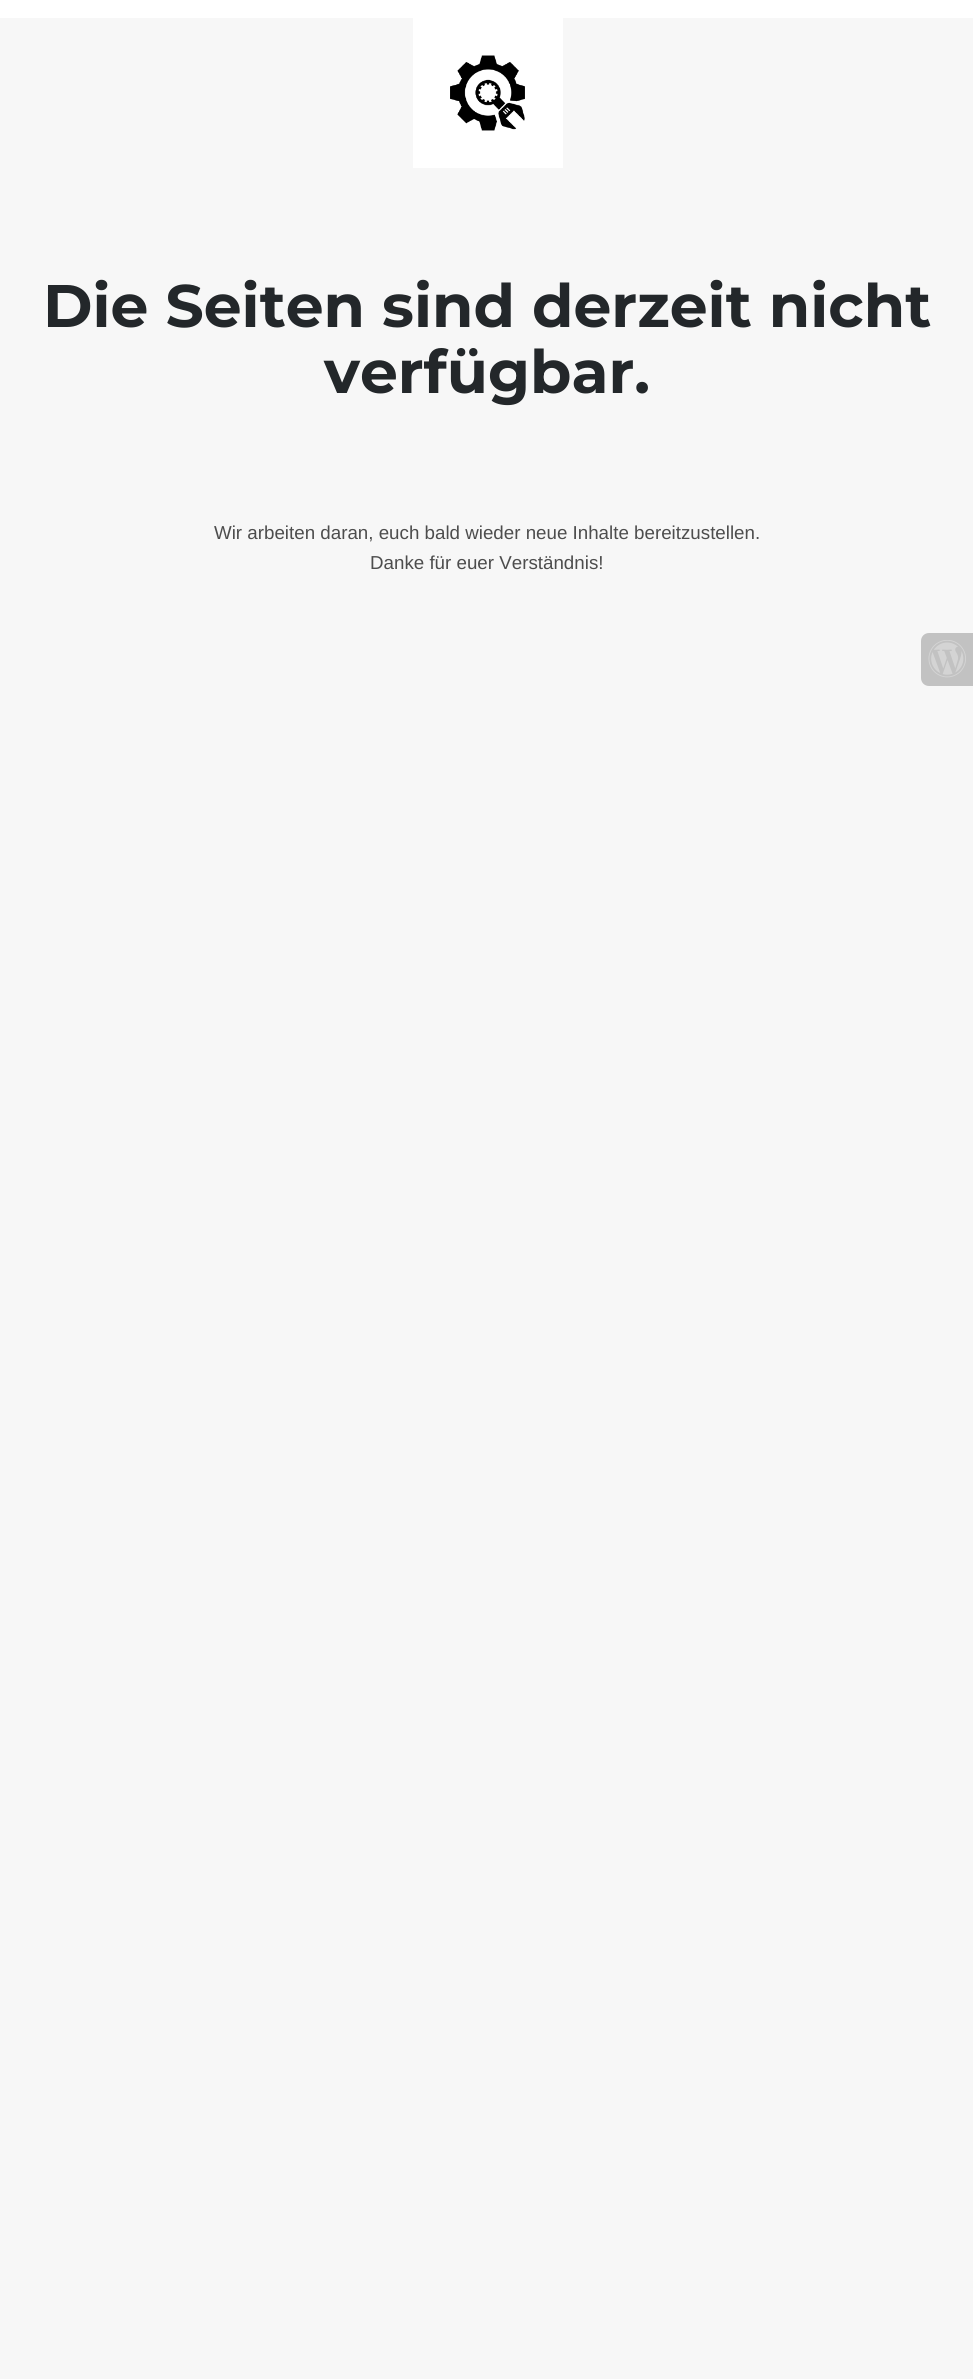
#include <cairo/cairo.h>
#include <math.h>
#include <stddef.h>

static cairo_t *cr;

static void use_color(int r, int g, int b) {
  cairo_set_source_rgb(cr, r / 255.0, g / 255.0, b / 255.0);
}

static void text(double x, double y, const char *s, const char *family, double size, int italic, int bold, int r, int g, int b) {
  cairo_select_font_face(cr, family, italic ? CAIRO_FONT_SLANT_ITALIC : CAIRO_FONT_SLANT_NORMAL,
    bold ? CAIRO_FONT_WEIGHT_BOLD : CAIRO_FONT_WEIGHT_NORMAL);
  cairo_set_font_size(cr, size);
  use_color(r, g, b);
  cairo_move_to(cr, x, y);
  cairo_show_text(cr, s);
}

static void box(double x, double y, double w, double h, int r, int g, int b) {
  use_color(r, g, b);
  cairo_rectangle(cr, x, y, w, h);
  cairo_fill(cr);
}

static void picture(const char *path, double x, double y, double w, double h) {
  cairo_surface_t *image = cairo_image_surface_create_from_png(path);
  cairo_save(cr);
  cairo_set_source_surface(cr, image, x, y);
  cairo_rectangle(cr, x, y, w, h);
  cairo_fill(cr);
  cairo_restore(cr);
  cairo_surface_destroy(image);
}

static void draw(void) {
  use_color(247, 247, 247);
  cairo_paint(cr);
  box(0, 0, 973, 18, 255, 255, 255);
  box(413, 18, 150, 150, 255, 255, 255);
  picture("img_01.png", 450, 55, 75, 76);
  use_color(194, 194, 194);
  cairo_new_path(cr);
  cairo_move_to(cr, 929, 633);
  cairo_line_to(cr, 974, 633);
  cairo_line_to(cr, 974, 686);
  cairo_line_to(cr, 929, 686);
  cairo_curve_to(cr, 924.5, 686, 921, 682.5, 921, 678);
  cairo_line_to(cr, 921, 641);
  cairo_curve_to(cr, 921, 636.5, 924.5, 633, 929, 633);
  cairo_close_path(cr);
  cairo_fill(cr);
  picture("img_02.png", 928, 640, 38, 38);
  text(43, 327, "Die Seiten sind derzeit nicht", "Montserrat Thin", 60, 0, 0, 35, 39, 42);
  text(324, 393, "verfügbar.", "Montserrat Thin", 60, 0, 0, 35, 39, 42);
  text(214, 539, "Wir arbeiten daran, euch bald wieder neue Inhalte bereitzustellen.", "Liberation Sans", 18.75, 0, 0, 77, 77, 77);
  text(370, 569, "Danke für euer Verständnis!", "Liberation Sans", 18.75, 0, 0, 77, 77, 77);
}

int main(void) {
  cairo_surface_t *surface = cairo_image_surface_create(CAIRO_FORMAT_RGB24, 973, 2379);
  cr = cairo_create(surface);
  cairo_font_options_t *options = cairo_font_options_create();
  cairo_font_options_set_hint_metrics(options, CAIRO_HINT_METRICS_OFF);
  cairo_font_options_set_hint_style(options, CAIRO_HINT_STYLE_NONE);
  cairo_set_font_options(cr, options);
  cairo_set_miter_limit(cr, 4);
  draw();
  cairo_surface_write_to_png(surface, "out.png");
  cairo_font_options_destroy(options);
  cairo_destroy(cr);
  cairo_surface_destroy(surface);
  return 0;
}
